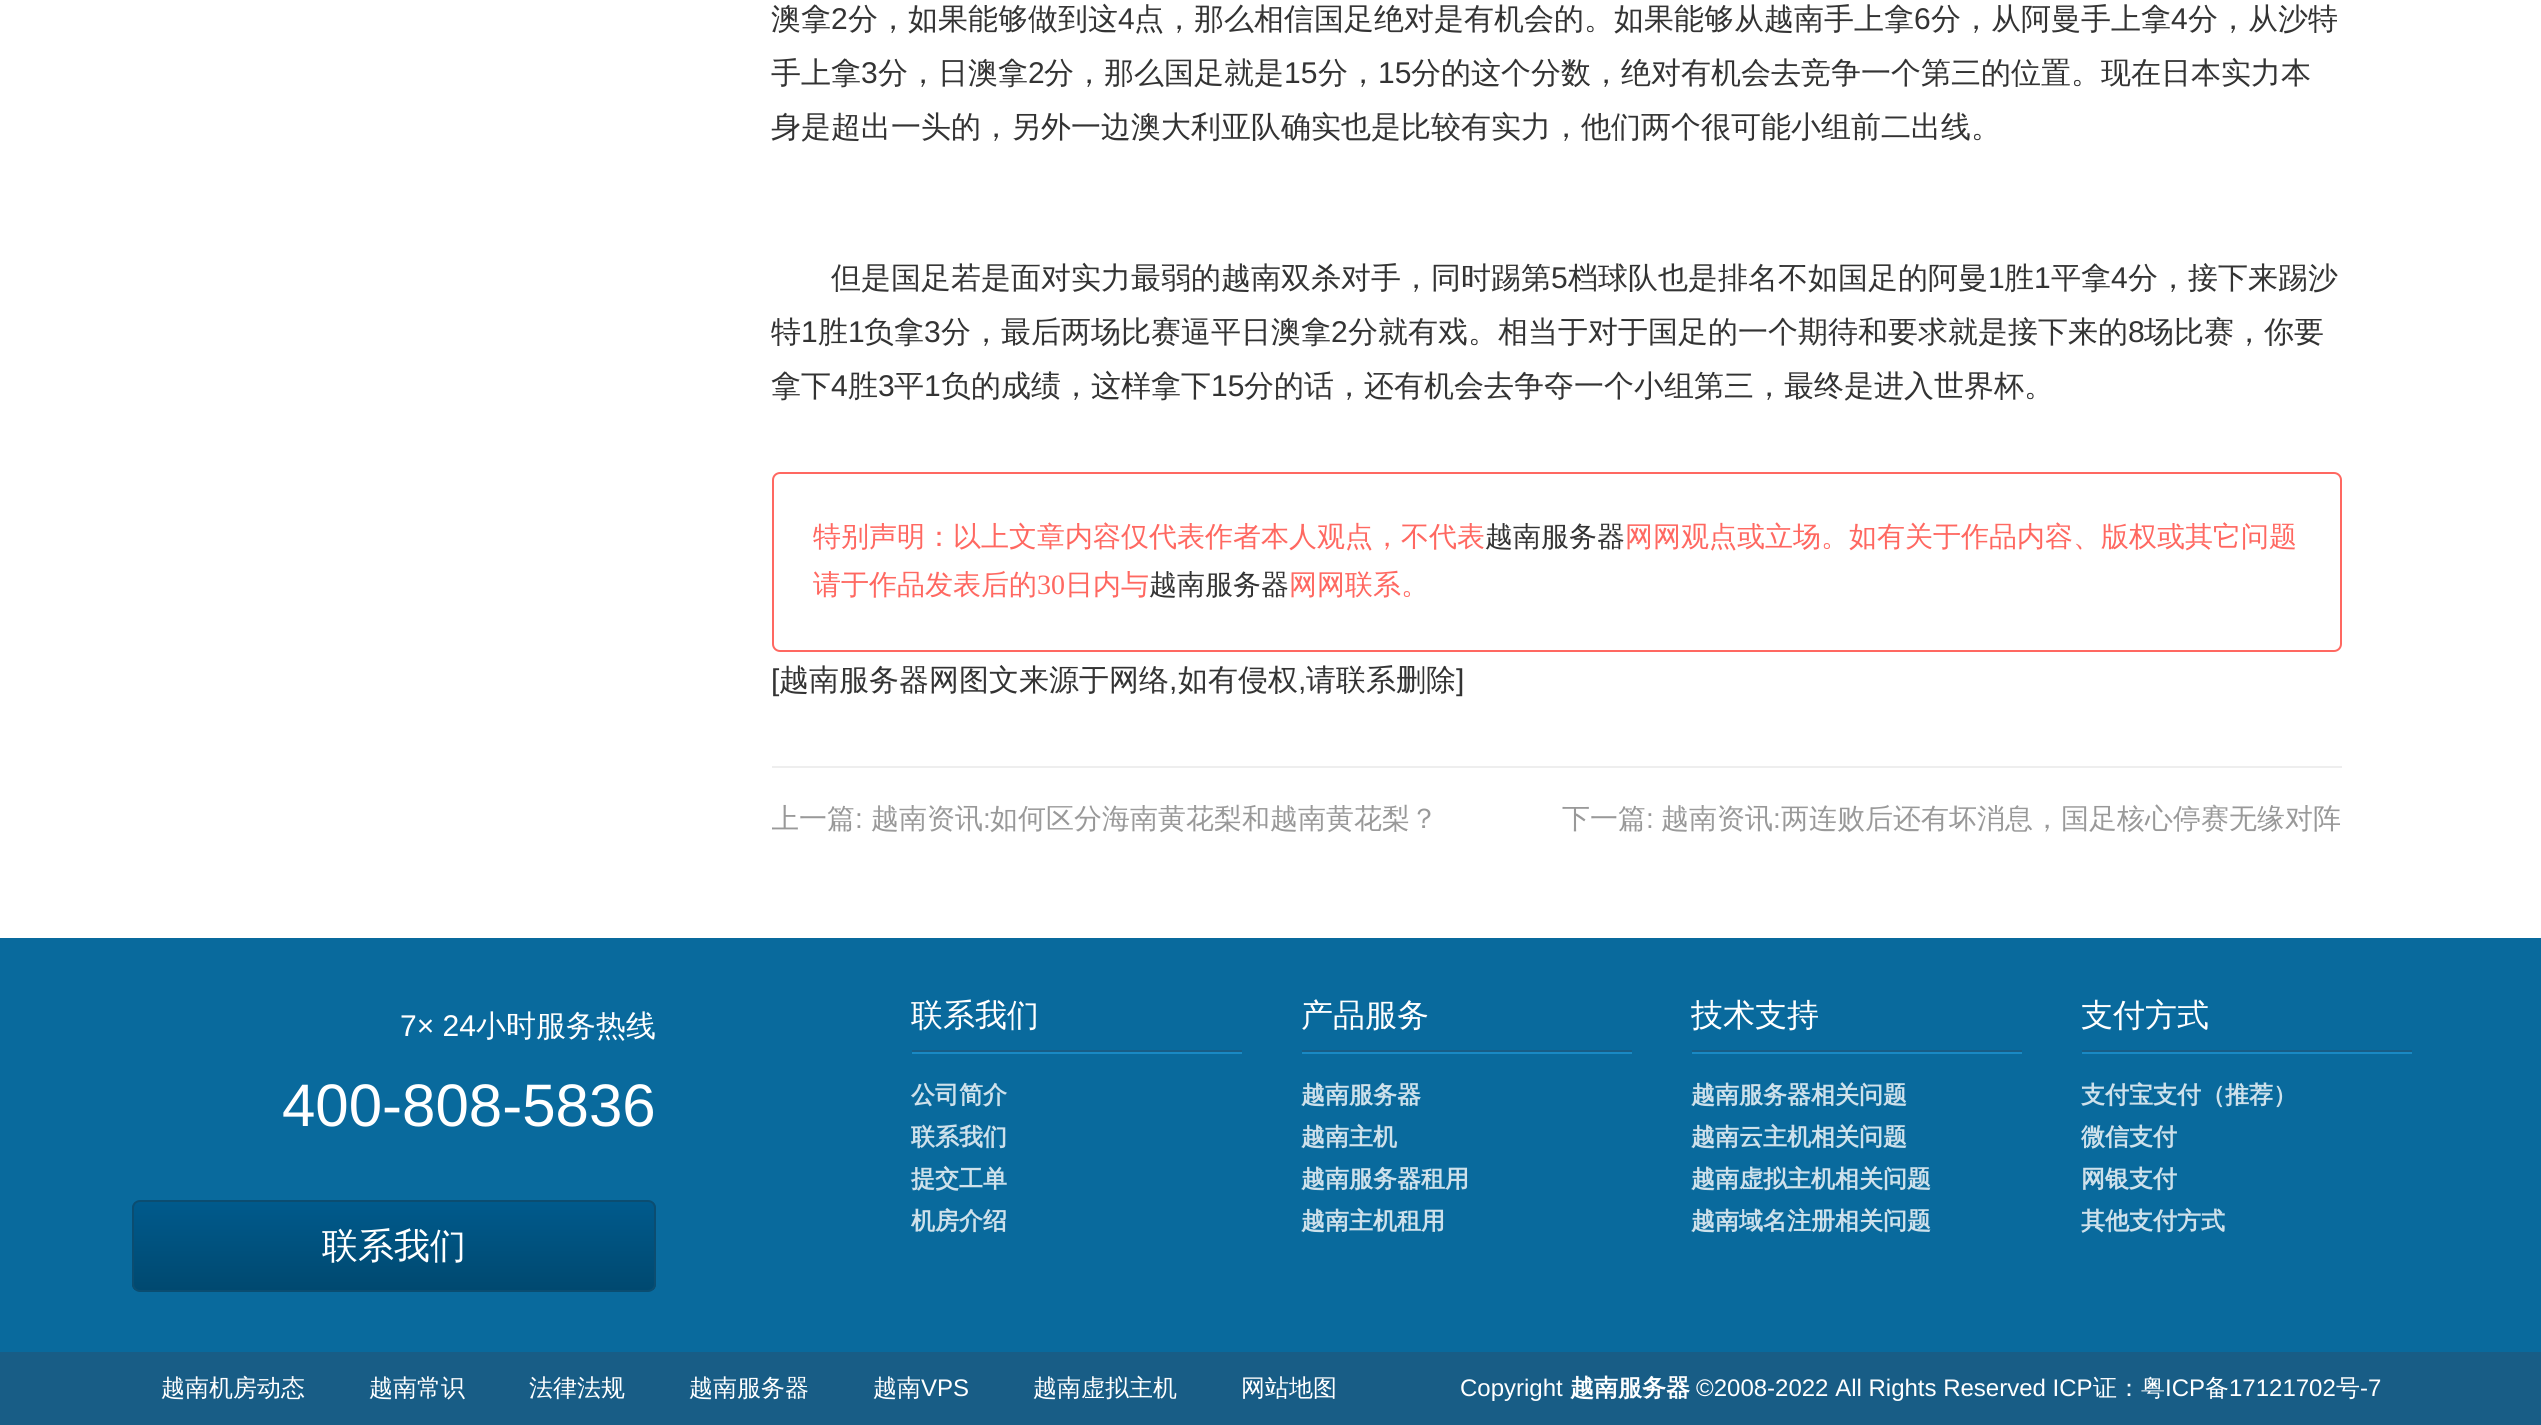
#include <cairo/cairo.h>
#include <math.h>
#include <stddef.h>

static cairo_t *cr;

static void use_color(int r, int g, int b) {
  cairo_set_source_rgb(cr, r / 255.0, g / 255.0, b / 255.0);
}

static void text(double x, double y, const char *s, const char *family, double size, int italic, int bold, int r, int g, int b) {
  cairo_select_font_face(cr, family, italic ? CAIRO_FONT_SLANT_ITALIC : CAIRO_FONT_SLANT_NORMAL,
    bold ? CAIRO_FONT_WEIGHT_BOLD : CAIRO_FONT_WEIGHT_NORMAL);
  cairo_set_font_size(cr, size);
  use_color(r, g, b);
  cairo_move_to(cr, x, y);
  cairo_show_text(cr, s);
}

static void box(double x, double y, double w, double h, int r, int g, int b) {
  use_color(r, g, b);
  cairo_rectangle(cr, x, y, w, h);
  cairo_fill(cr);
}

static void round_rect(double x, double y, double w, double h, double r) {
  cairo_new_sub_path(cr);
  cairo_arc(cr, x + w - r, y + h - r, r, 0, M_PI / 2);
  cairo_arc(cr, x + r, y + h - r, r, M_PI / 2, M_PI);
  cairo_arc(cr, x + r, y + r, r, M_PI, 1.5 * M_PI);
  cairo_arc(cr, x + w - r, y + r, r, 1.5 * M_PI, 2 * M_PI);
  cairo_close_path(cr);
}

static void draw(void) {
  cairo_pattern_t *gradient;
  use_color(255, 255, 255);
  cairo_paint(cr);
  round_rect(773, 473, 1568, 178, 7);
  use_color(255, 104, 97);
  cairo_stroke(cr);
  box(772, 766, 1570, 2, 238, 238, 238);
  box(0, 938, 2541, 414, 9, 106, 157);
  cairo_save(cr);
  round_rect(132, 1200, 524, 92, 8);
  cairo_clip(cr);
  gradient = cairo_pattern_create_linear(394, 1202, 394, 1290);
  cairo_pattern_add_color_stop_rgba(gradient, 0, 0, 0.353, 0.549, 1);
  cairo_pattern_add_color_stop_rgba(gradient, 1, 0, 0.286, 0.439, 1);
  cairo_set_source(cr, gradient);
  cairo_pattern_destroy(gradient);
  cairo_rectangle(cr, 132, 1202, 524, 88);
  cairo_fill(cr);
  cairo_restore(cr);
  round_rect(133, 1201, 522, 90, 7);
  use_color(11, 77, 113);
  cairo_stroke(cr);
  box(912, 1050, 330, 2, 24, 93, 134);
  box(912, 1052, 330, 2, 25, 137, 196);
  box(1302, 1050, 330, 2, 24, 93, 134);
  box(1302, 1052, 330, 2, 25, 137, 196);
  box(1692, 1050, 330, 2, 24, 93, 134);
  box(1692, 1052, 330, 2, 25, 137, 196);
  box(2082, 1050, 330, 2, 24, 93, 134);
  box(2082, 1052, 330, 2, 25, 137, 196);
  box(0, 1352, 2541, 73, 24, 93, 134);
  text(771, 29, "澳拿", "WenQuanYi Zen Hei Medium", 30, 0, 0, 51, 51, 51);
  text(831, 29, "2", "Liberation Sans", 30, 0, 0, 51, 51, 51);
  text(848, 29, "分，如果能够做到这", "WenQuanYi Zen Hei Medium", 30, 0, 0, 51, 51, 51);
  text(1118, 29, "4", "Liberation Sans", 30, 0, 0, 51, 51, 51);
  text(1134, 29, "点，那么相信国足绝对是有机会的。如果能够从越南手上拿", "WenQuanYi Zen Hei Medium", 30, 0, 0, 51, 51, 51);
  text(1914, 29, "6", "Liberation Sans", 30, 0, 0, 51, 51, 51);
  text(1931, 29, "分，从阿曼手上拿", "WenQuanYi Zen Hei Medium", 30, 0, 0, 51, 51, 51);
  text(2171, 29, "4", "Liberation Sans", 30, 0, 0, 51, 51, 51);
  text(2188, 29, "分，从沙特", "WenQuanYi Zen Hei Medium", 30, 0, 0, 51, 51, 51);
  text(771, 83, "手上拿", "WenQuanYi Zen Hei Medium", 30, 0, 0, 51, 51, 51);
  text(861, 83, "3", "Liberation Sans", 30, 0, 0, 51, 51, 51);
  text(878, 83, "分，日澳拿", "WenQuanYi Zen Hei Medium", 30, 0, 0, 51, 51, 51);
  text(1028, 83, "2", "Liberation Sans", 30, 0, 0, 51, 51, 51);
  text(1044, 83, "分，那么国足就是", "WenQuanYi Zen Hei Medium", 30, 0, 0, 51, 51, 51);
  text(1284, 83, "15", "Liberation Sans", 30, 0, 0, 51, 51, 51);
  text(1318, 83, "分，", "WenQuanYi Zen Hei Medium", 30, 0, 0, 51, 51, 51);
  text(1378, 83, "15", "Liberation Sans", 30, 0, 0, 51, 51, 51);
  text(1411, 83, "分的这个分数，绝对有机会去竞争一个第三的位置。现在日本实力本", "WenQuanYi Zen Hei Medium", 30, 0, 0, 51, 51, 51);
  text(771, 137, "身是超出一头的，另外一边澳大利亚队确实也是比较有实力，他们两个很可能小组前二出线。", "WenQuanYi Zen Hei Medium", 30, 0, 0, 51, 51, 51);
  text(831, 288, "但是国足若是面对实力最弱的越南双杀对手，同时踢第", "WenQuanYi Zen Hei Medium", 30, 0, 0, 51, 51, 51);
  text(1551, 288, "5", "Liberation Sans", 30, 0, 0, 51, 51, 51);
  text(1568, 288, "档球队也是排名不如国足的阿曼", "WenQuanYi Zen Hei Medium", 30, 0, 0, 51, 51, 51);
  text(1988, 288, "1", "Liberation Sans", 30, 0, 0, 51, 51, 51);
  text(2004, 288, "胜", "WenQuanYi Zen Hei Medium", 30, 0, 0, 51, 51, 51);
  text(2034, 288, "1", "Liberation Sans", 30, 0, 0, 51, 51, 51);
  text(2051, 288, "平拿", "WenQuanYi Zen Hei Medium", 30, 0, 0, 51, 51, 51);
  text(2111, 288, "4", "Liberation Sans", 30, 0, 0, 51, 51, 51);
  text(2128, 288, "分，接下来踢沙", "WenQuanYi Zen Hei Medium", 30, 0, 0, 51, 51, 51);
  text(771, 342, "特", "WenQuanYi Zen Hei Medium", 30, 0, 0, 51, 51, 51);
  text(801, 342, "1", "Liberation Sans", 30, 0, 0, 51, 51, 51);
  text(818, 342, "胜", "WenQuanYi Zen Hei Medium", 30, 0, 0, 51, 51, 51);
  text(848, 342, "1", "Liberation Sans", 30, 0, 0, 51, 51, 51);
  text(864, 342, "负拿", "WenQuanYi Zen Hei Medium", 30, 0, 0, 51, 51, 51);
  text(924, 342, "3", "Liberation Sans", 30, 0, 0, 51, 51, 51);
  text(941, 342, "分，最后两场比赛逼平日澳拿", "WenQuanYi Zen Hei Medium", 30, 0, 0, 51, 51, 51);
  text(1331, 342, "2", "Liberation Sans", 30, 0, 0, 51, 51, 51);
  text(1348, 342, "分就有戏。相当于对于国足的一个期待和要求就是接下来的", "WenQuanYi Zen Hei Medium", 30, 0, 0, 51, 51, 51);
  text(2128, 342, "8", "Liberation Sans", 30, 0, 0, 51, 51, 51);
  text(2144, 342, "场比赛，你要", "WenQuanYi Zen Hei Medium", 30, 0, 0, 51, 51, 51);
  text(771, 396, "拿下", "WenQuanYi Zen Hei Medium", 30, 0, 0, 51, 51, 51);
  text(831, 396, "4", "Liberation Sans", 30, 0, 0, 51, 51, 51);
  text(848, 396, "胜", "WenQuanYi Zen Hei Medium", 30, 0, 0, 51, 51, 51);
  text(878, 396, "3", "Liberation Sans", 30, 0, 0, 51, 51, 51);
  text(894, 396, "平", "WenQuanYi Zen Hei Medium", 30, 0, 0, 51, 51, 51);
  text(924, 396, "1", "Liberation Sans", 30, 0, 0, 51, 51, 51);
  text(941, 396, "负的成绩，这样拿下", "WenQuanYi Zen Hei Medium", 30, 0, 0, 51, 51, 51);
  text(1211, 396, "15", "Liberation Sans", 30, 0, 0, 51, 51, 51);
  text(1244, 396, "分的话，还有机会去争夺一个小组第三，最终是进入世界杯。", "WenQuanYi Zen Hei Medium", 30, 0, 0, 51, 51, 51);
  text(813, 546, "特别声明：以上文章内容仅代表作者本人观点，不代表", "WenQuanYi Zen Hei Medium", 28, 0, 0, 255, 104, 97);
  text(1485, 546, "越南服务器", "WenQuanYi Zen Hei Medium", 28, 0, 0, 51, 51, 51);
  text(1625, 546, "网网观点或立场。如有关于作品内容、版权或其它问题", "WenQuanYi Zen Hei Medium", 28, 0, 0, 255, 104, 97);
  text(813, 594, "请于作品发表后的", "WenQuanYi Zen Hei Medium", 28, 0, 0, 255, 104, 97);
  text(1037, 594, "30", "Liberation Serif", 28, 0, 0, 255, 104, 97);
  text(1065, 594, "日内与", "WenQuanYi Zen Hei Medium", 28, 0, 0, 255, 104, 97);
  text(1149, 594, "越南服务器", "WenQuanYi Zen Hei Medium", 28, 0, 0, 51, 51, 51);
  text(1289, 594, "网网联系。", "WenQuanYi Zen Hei Medium", 28, 0, 0, 255, 104, 97);
  text(771, 690, "[", "Liberation Sans", 30, 0, 0, 51, 51, 51);
  text(779, 690, "越南服务器网图文来源于网络", "WenQuanYi Zen Hei Medium", 30, 0, 0, 51, 51, 51);
  text(1169, 690, ",", "Liberation Sans", 30, 0, 0, 51, 51, 51);
  text(1178, 690, "如有侵权", "WenQuanYi Zen Hei Medium", 30, 0, 0, 51, 51, 51);
  text(1298, 690, ",", "Liberation Sans", 30, 0, 0, 51, 51, 51);
  text(1306, 690, "请联系删除", "WenQuanYi Zen Hei Medium", 30, 0, 0, 51, 51, 51);
  text(1456, 690, "]", "Liberation Sans", 30, 0, 0, 51, 51, 51);
  cairo_save(cr);
  cairo_rectangle(cr, 772, 768, 784, 70);
  cairo_clip(cr);
  text(771, 828, "上一篇", "WenQuanYi Zen Hei Medium", 28, 0, 0, 153, 153, 153);
  cairo_restore(cr);
  text(855, 828, ":", "Liberation Sans", 28, 0, 0, 153, 153, 153);
  text(871, 828, "越南资讯", "WenQuanYi Zen Hei Medium", 28, 0, 0, 153, 153, 153);
  text(983, 828, ":", "Liberation Sans", 28, 0, 0, 153, 153, 153);
  text(990, 828, "如何区分海南黄花梨和越南黄花梨？", "WenQuanYi Zen Hei Medium", 28, 0, 0, 153, 153, 153);
  text(1562, 828, "下一篇", "WenQuanYi Zen Hei Medium", 28, 0, 0, 153, 153, 153);
  text(1646, 828, ":", "Liberation Sans", 28, 0, 0, 153, 153, 153);
  text(1661, 828, "越南资讯", "WenQuanYi Zen Hei Medium", 28, 0, 0, 153, 153, 153);
  text(1773, 828, ":", "Liberation Sans", 28, 0, 0, 153, 153, 153);
  text(1781, 828, "两连败后还有坏消息，国足核心停赛无缘对阵", "WenQuanYi Zen Hei Medium", 28, 0, 0, 153, 153, 153);
  text(400, 1036, "7× 24", "Liberation Sans", 30, 0, 0, 255, 255, 255);
  text(476, 1036, "小时服务热线", "WenQuanYi Zen Hei Medium", 30, 0, 0, 255, 255, 255);
  text(282, 1126, "400-808-5836", "Liberation Sans", 60, 0, 0, 255, 255, 255);
  text(322, 1258, "联系我们", "WenQuanYi Zen Hei Medium", 36, 0, 0, 255, 255, 255);
  text(911, 1026, "联系我们", "WenQuanYi Zen Hei Medium", 32, 0, 0, 255, 255, 255);
  text(911, 1103, "公司简介", "WenQuanYi Zen Hei", 24, 0, 1, 206, 225, 235);
  text(911, 1145, "联系我们", "WenQuanYi Zen Hei", 24, 0, 1, 206, 225, 235);
  text(911, 1187, "提交工单", "WenQuanYi Zen Hei", 24, 0, 1, 206, 225, 235);
  text(911, 1229, "机房介绍", "WenQuanYi Zen Hei", 24, 0, 1, 206, 225, 235);
  text(1301, 1026, "产品服务", "WenQuanYi Zen Hei Medium", 32, 0, 0, 255, 255, 255);
  text(1301, 1103, "越南服务器", "WenQuanYi Zen Hei", 24, 0, 1, 206, 225, 235);
  text(1301, 1145, "越南主机", "WenQuanYi Zen Hei", 24, 0, 1, 206, 225, 235);
  text(1301, 1187, "越南服务器租用", "WenQuanYi Zen Hei", 24, 0, 1, 206, 225, 235);
  text(1301, 1229, "越南主机租用", "WenQuanYi Zen Hei", 24, 0, 1, 206, 225, 235);
  text(1691, 1026, "技术支持", "WenQuanYi Zen Hei Medium", 32, 0, 0, 255, 255, 255);
  text(1691, 1103, "越南服务器相关问题", "WenQuanYi Zen Hei", 24, 0, 1, 206, 225, 235);
  text(1691, 1145, "越南云主机相关问题", "WenQuanYi Zen Hei", 24, 0, 1, 206, 225, 235);
  text(1691, 1187, "越南虚拟主机相关问题", "WenQuanYi Zen Hei", 24, 0, 1, 206, 225, 235);
  text(1691, 1229, "越南域名注册相关问题", "WenQuanYi Zen Hei", 24, 0, 1, 206, 225, 235);
  text(2081, 1026, "支付方式", "WenQuanYi Zen Hei Medium", 32, 0, 0, 255, 255, 255);
  text(2081, 1103, "支付宝支付（推荐）", "WenQuanYi Zen Hei", 24, 0, 1, 206, 225, 235);
  text(2081, 1145, "微信支付", "WenQuanYi Zen Hei", 24, 0, 1, 206, 225, 235);
  text(2081, 1187, "网银支付", "WenQuanYi Zen Hei", 24, 0, 1, 206, 225, 235);
  text(2081, 1229, "其他支付方式", "WenQuanYi Zen Hei", 24, 0, 1, 206, 225, 235);
  text(161, 1396, "越南机房动态", "WenQuanYi Zen Hei Medium", 24, 0, 0, 255, 255, 255);
  text(369, 1396, "越南常识", "WenQuanYi Zen Hei Medium", 24, 0, 0, 255, 255, 255);
  text(529, 1396, "法律法规", "WenQuanYi Zen Hei Medium", 24, 0, 0, 255, 255, 255);
  text(689, 1396, "越南服务器", "WenQuanYi Zen Hei Medium", 24, 0, 0, 255, 255, 255);
  text(873, 1396, "越南", "WenQuanYi Zen Hei Medium", 24, 0, 0, 255, 255, 255);
  text(921, 1396, "VPS", "Liberation Sans", 24, 0, 0, 255, 255, 255);
  text(1033, 1396, "越南虚拟主机", "WenQuanYi Zen Hei Medium", 24, 0, 0, 255, 255, 255);
  text(1241, 1396, "网站地图", "WenQuanYi Zen Hei Medium", 24, 0, 0, 255, 255, 255);
  text(1460, 1396, "Copyright", "Liberation Sans", 24, 0, 0, 255, 255, 255);
  text(1570, 1396, "越南服务器", "WenQuanYi Zen Hei", 24, 0, 1, 255, 255, 255);
  text(1696, 1396, "©2008-2022 All Rights Reserved ICP", "Liberation Sans", 24, 0, 0, 255, 255, 255);
  text(2093, 1396, "证：粤", "WenQuanYi Zen Hei Medium", 24, 0, 0, 255, 255, 255);
  text(2165, 1396, "ICP", "Liberation Sans", 24, 0, 0, 255, 255, 255);
  text(2205, 1396, "备", "WenQuanYi Zen Hei Medium", 24, 0, 0, 255, 255, 255);
  text(2229, 1396, "17121702", "Liberation Sans", 24, 0, 0, 255, 255, 255);
  text(2336, 1396, "号", "WenQuanYi Zen Hei Medium", 24, 0, 0, 255, 255, 255);
  text(2360, 1396, "-7", "Liberation Sans", 24, 0, 0, 255, 255, 255);
}

int main(void) {
  cairo_surface_t *surface = cairo_image_surface_create(CAIRO_FORMAT_RGB24, 2541, 1425);
  cr = cairo_create(surface);
  cairo_font_options_t *options = cairo_font_options_create();
  cairo_font_options_set_hint_metrics(options, CAIRO_HINT_METRICS_OFF);
  cairo_font_options_set_hint_style(options, CAIRO_HINT_STYLE_NONE);
  cairo_set_font_options(cr, options);
  cairo_set_miter_limit(cr, 4);
  draw();
  cairo_surface_write_to_png(surface, "out.png");
  cairo_font_options_destroy(options);
  cairo_destroy(cr);
  cairo_surface_destroy(surface);
  return 0;
}
